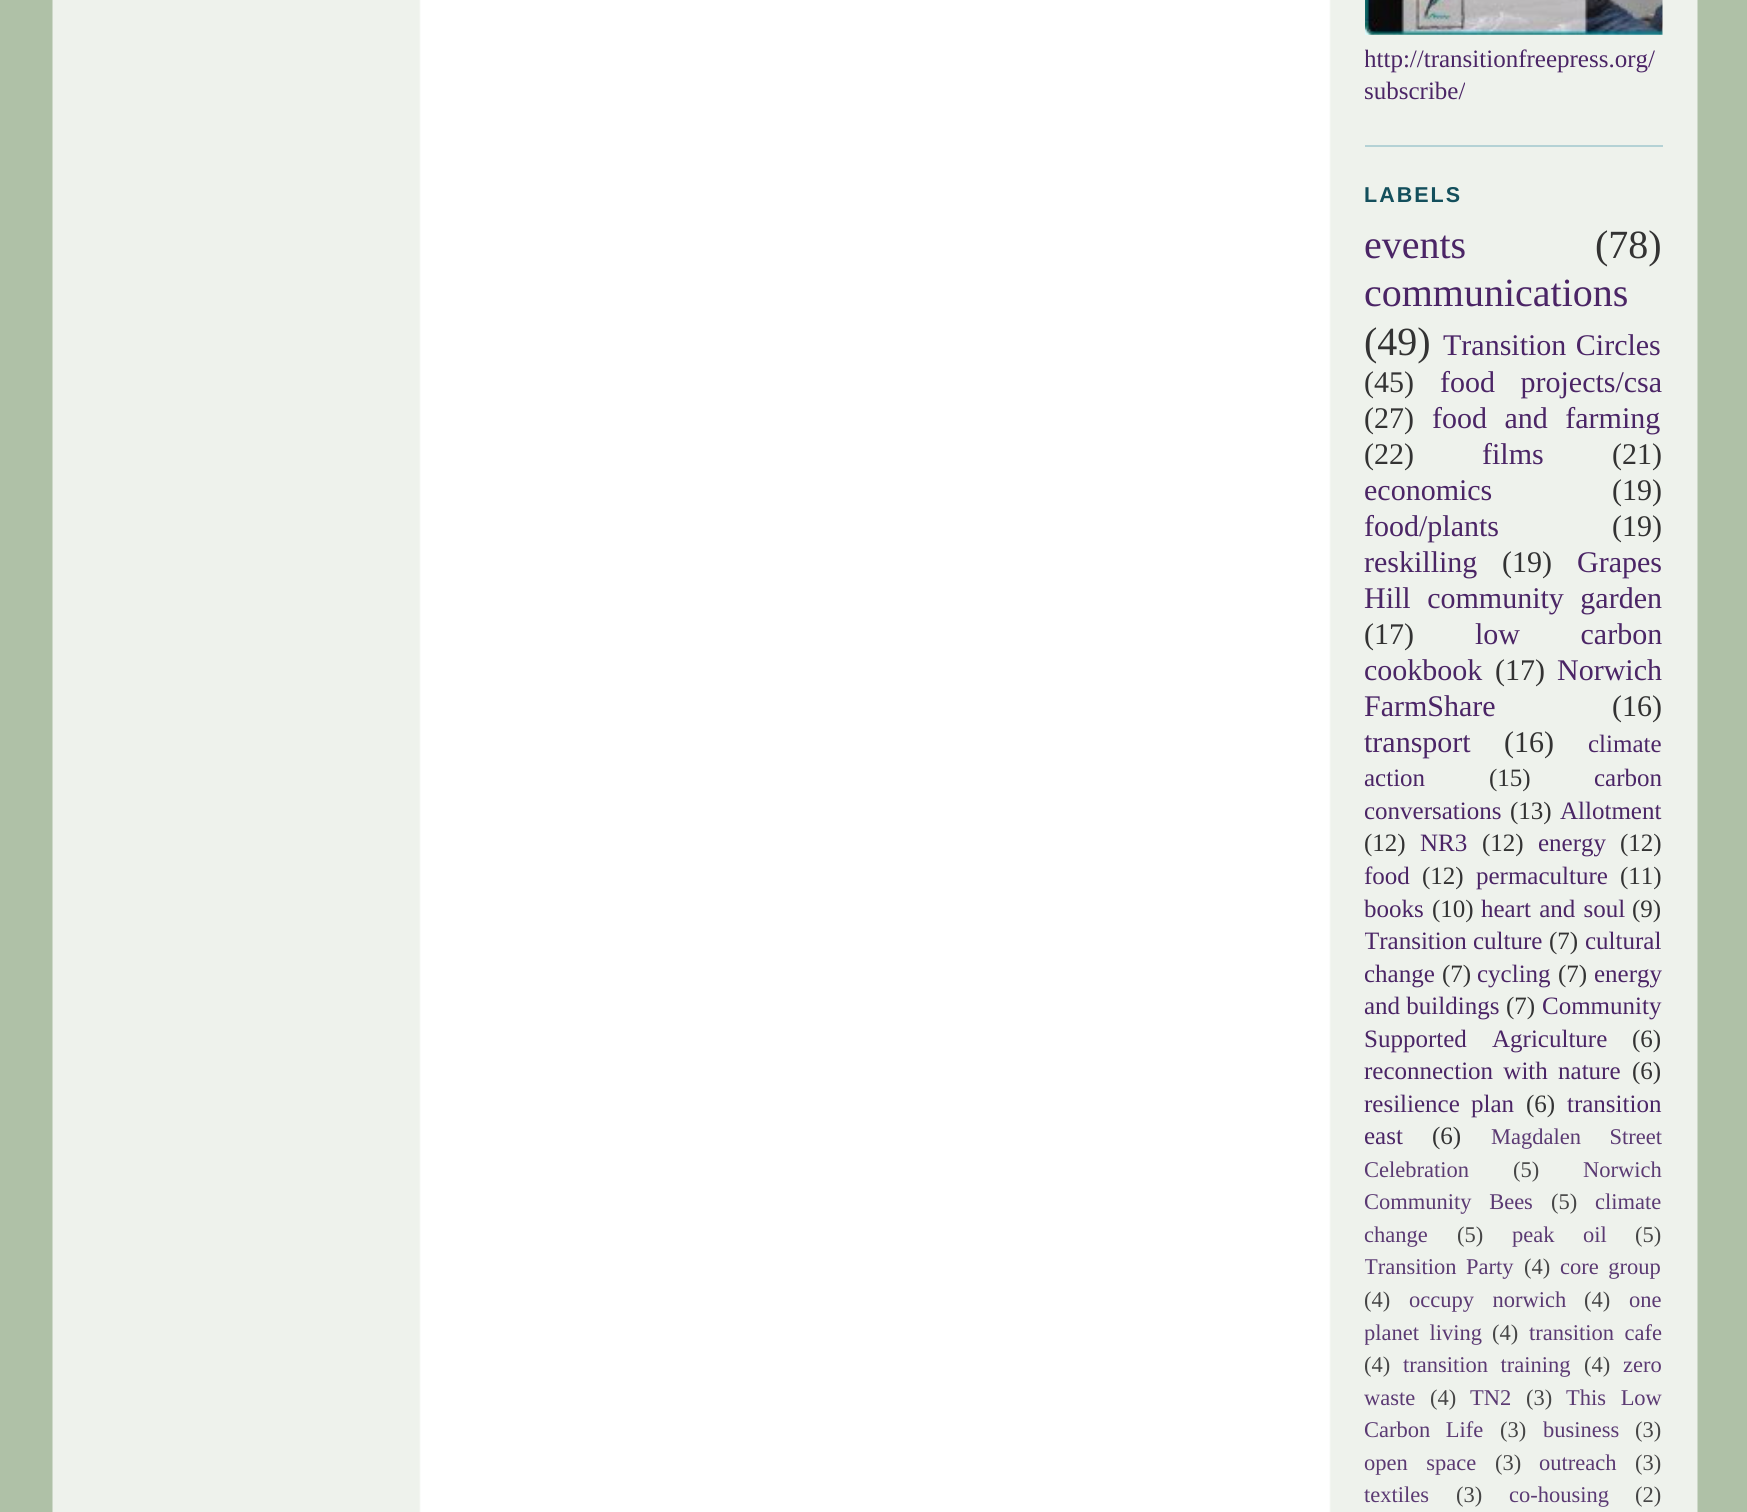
#include <cairo/cairo.h>
#include <math.h>
#include <stddef.h>

static cairo_t *cr;

static void use_color(int r, int g, int b) {
  cairo_set_source_rgb(cr, r / 255.0, g / 255.0, b / 255.0);
}

static void text(double x, double y, const char *s, const char *family, double size, int italic, int bold, int r, int g, int b) {
  cairo_select_font_face(cr, family, italic ? CAIRO_FONT_SLANT_ITALIC : CAIRO_FONT_SLANT_NORMAL,
    bold ? CAIRO_FONT_WEIGHT_BOLD : CAIRO_FONT_WEIGHT_NORMAL);
  cairo_set_font_size(cr, size);
  use_color(r, g, b);
  cairo_move_to(cr, x, y);
  cairo_show_text(cr, s);
}

static void spaced_text(double x, double y, const char *s, double letter, double word) {
  cairo_move_to(cr, x, y);
  while (*s) {
    char ch[5] = {0};
    int n = 0;
    do ch[n++] = *s++; while ((*s & 0xC0) == 0x80);
    cairo_show_text(cr, ch);
    cairo_rel_move_to(cr, letter + word * (*ch == ' '), 0);
  }
}

static void box(double x, double y, double w, double h, int r, int g, int b) {
  use_color(r, g, b);
  cairo_rectangle(cr, x, y, w, h);
  cairo_fill(cr);
}

static void picture(const char *path, double x, double y, double w, double h) {
  cairo_surface_t *image = cairo_image_surface_create_from_png(path);
  cairo_save(cr);
  cairo_set_source_surface(cr, image, x, y);
  cairo_rectangle(cr, x, y, w, h);
  cairo_fill(cr);
  cairo_restore(cr);
  cairo_surface_destroy(image);
}

static void draw(void) {
  use_color(175, 193, 167);
  cairo_paint(cr);
  picture("img_01.png", 52, 0, 1646, 1512);
  box(1365, 145, 298, 2, 180, 210, 213);
  picture("img_02.png", 1365, 0, 298, 35);
  cairo_save(cr);
  cairo_rectangle(cr, 1365, 0, 298, 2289);
  cairo_clip(cr);
  text(1364, 67, "http://transitionfreepress.org/", "Liberation Serif", 25, 0, 0, 75, 37, 102);
  cairo_restore(cr);
  text(1364, 99, "subscribe/", "Liberation Serif", 25, 0, 0, 75, 37, 102);
  cairo_select_font_face(cr, "Liberation Sans", CAIRO_FONT_SLANT_NORMAL, CAIRO_FONT_WEIGHT_BOLD);
  cairo_set_font_size(cr, 21.5);
  use_color(19, 79, 92);
  spaced_text(1364, 202, "LABELS", 2, 0);
  text(1364, 258, "events", "Liberation Serif", 40, 0, 0, 75, 37, 102);
  text(1595, 258, "(78)", "Liberation Serif", 40, 0, 0, 51, 51, 51);
  text(1364, 306, "communications", "Liberation Serif", 40, 0, 0, 75, 37, 102);
  text(1364, 355, "(49)", "Liberation Serif", 40, 0, 0, 51, 51, 51);
  cairo_set_font_size(cr, 30);
  use_color(75, 37, 102);
  spaced_text(1443, 355, "Transition Circles", 0, 2);
  text(1364, 392, "(45)", "Liberation Serif", 30, 0, 0, 51, 51, 51);
  use_color(75, 37, 102);
  spaced_text(1440, 392, "food projects/csa", 0, 18);
  text(1364, 428, "(27)", "Liberation Serif", 30, 0, 0, 51, 51, 51);
  use_color(75, 37, 102);
  spaced_text(1432, 428, "food and farming", 0, 10);
  text(1364, 464, "(22)", "Liberation Serif", 30, 0, 0, 51, 51, 51);
  text(1482, 464, "films", "Liberation Serif", 30, 0, 0, 75, 37, 102);
  text(1612, 464, "(21)", "Liberation Serif", 30, 0, 0, 51, 51, 51);
  text(1364, 500, "economics", "Liberation Serif", 30, 0, 0, 75, 37, 102);
  text(1612, 500, "(19)", "Liberation Serif", 30, 0, 0, 51, 51, 51);
  text(1364, 536, "food/plants", "Liberation Serif", 30, 0, 0, 75, 37, 102);
  text(1612, 536, "(19)", "Liberation Serif", 30, 0, 0, 51, 51, 51);
  text(1364, 572, "reskilling", "Liberation Serif", 30, 0, 0, 75, 37, 102);
  text(1502, 572, "(19)", "Liberation Serif", 30, 0, 0, 51, 51, 51);
  text(1577, 572, "Grapes", "Liberation Serif", 30, 0, 0, 75, 37, 102);
  spaced_text(1364, 608, "Hill community garden", 0, 9);
  text(1364, 644, "(17)", "Liberation Serif", 30, 0, 0, 51, 51, 51);
  use_color(75, 37, 102);
  spaced_text(1475, 644, "low carbon", 0, 53);
  text(1364, 680, "cookbook", "Liberation Serif", 30, 0, 0, 75, 37, 102);
  text(1495, 680, "(17)", "Liberation Serif", 30, 0, 0, 51, 51, 51);
  text(1557, 680, "Norwich", "Liberation Serif", 30, 0, 0, 75, 37, 102);
  text(1364, 716, "FarmShare", "Liberation Serif", 30, 0, 0, 75, 37, 102);
  text(1612, 716, "(16)", "Liberation Serif", 30, 0, 0, 51, 51, 51);
  text(1364, 752, "transport", "Liberation Serif", 30, 0, 0, 75, 37, 102);
  text(1504, 752, "(16)", "Liberation Serif", 30, 0, 0, 51, 51, 51);
  text(1588, 752, "climate", "Liberation Serif", 25, 0, 0, 75, 37, 102);
  text(1364, 786, "action", "Liberation Serif", 25, 0, 0, 75, 37, 102);
  text(1489, 786, "(15)", "Liberation Serif", 25, 0, 0, 51, 51, 51);
  text(1594, 786, "carbon", "Liberation Serif", 25, 0, 0, 75, 37, 102);
  text(1364, 819, "conversations", "Liberation Serif", 25, 0, 0, 75, 37, 102);
  text(1510, 819, "(13)", "Liberation Serif", 25, 0, 0, 51, 51, 51);
  text(1560, 819, "Allotment", "Liberation Serif", 25, 0, 0, 75, 37, 102);
  text(1364, 851, "(12)", "Liberation Serif", 25, 0, 0, 51, 51, 51);
  text(1420, 851, "NR3", "Liberation Serif", 25, 0, 0, 75, 37, 102);
  text(1482, 851, "(12)", "Liberation Serif", 25, 0, 0, 51, 51, 51);
  text(1538, 851, "energy", "Liberation Serif", 25, 0, 0, 75, 37, 102);
  text(1620, 851, "(12)", "Liberation Serif", 25, 0, 0, 51, 51, 51);
  text(1364, 884, "food", "Liberation Serif", 25, 0, 0, 75, 37, 102);
  text(1422, 884, "(12)", "Liberation Serif", 25, 0, 0, 51, 51, 51);
  text(1476, 884, "permaculture", "Liberation Serif", 25, 0, 0, 75, 37, 102);
  text(1620, 884, "(11)", "Liberation Serif", 25, 0, 0, 51, 51, 51);
  text(1364, 917, "books", "Liberation Serif", 25, 0, 0, 75, 37, 102);
  text(1432, 917, "(10)", "Liberation Serif", 25, 0, 0, 51, 51, 51);
  use_color(75, 37, 102);
  spaced_text(1481, 917, "heart and soul", 0, 2);
  text(1632, 917, "(9)", "Liberation Serif", 25, 0, 0, 51, 51, 51);
  cairo_save(cr);
  cairo_rectangle(cr, 1365, 0, 298, 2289);
  cairo_clip(cr);
  text(1364, 949, "Transition culture", "Liberation Serif", 25, 0, 0, 75, 37, 102);
  cairo_restore(cr);
  text(1549, 949, "(7)", "Liberation Serif", 25, 0, 0, 51, 51, 51);
  text(1585, 949, "cultural", "Liberation Serif", 25, 0, 0, 75, 37, 102);
  text(1364, 982, "change", "Liberation Serif", 25, 0, 0, 75, 37, 102);
  text(1442, 982, "(7)", "Liberation Serif", 25, 0, 0, 51, 51, 51);
  text(1477, 982, "cycling", "Liberation Serif", 25, 0, 0, 75, 37, 102);
  text(1558, 982, "(7)", "Liberation Serif", 25, 0, 0, 51, 51, 51);
  text(1594, 982, "energy", "Liberation Serif", 25, 0, 0, 75, 37, 102);
  text(1364, 1014, "and buildings", "Liberation Serif", 25, 0, 0, 75, 37, 102);
  text(1506, 1014, "(7)", "Liberation Serif", 25, 0, 0, 51, 51, 51);
  text(1542, 1014, "Community", "Liberation Serif", 25, 0, 0, 75, 37, 102);
  spaced_text(1364, 1047, "Supported Agriculture", 0, 19);
  text(1632, 1047, "(6)", "Liberation Serif", 25, 0, 0, 51, 51, 51);
  use_color(75, 37, 102);
  spaced_text(1364, 1079, "reconnection with nature", 0, 4);
  text(1632, 1079, "(6)", "Liberation Serif", 25, 0, 0, 51, 51, 51);
  use_color(75, 37, 102);
  spaced_text(1364, 1112, "resilience plan", 0, 5);
  text(1526, 1112, "(6)", "Liberation Serif", 25, 0, 0, 51, 51, 51);
  text(1567, 1112, "transition", "Liberation Serif", 25, 0, 0, 75, 37, 102);
  text(1364, 1144, "east", "Liberation Serif", 25, 0, 0, 75, 37, 102);
  text(1432, 1144, "(6)", "Liberation Serif", 25, 0, 0, 51, 51, 51);
  cairo_set_font_size(cr, 22.5);
  use_color(91, 58, 115);
  spaced_text(1491, 1144, "Magdalen Street", 0, 23);
  text(1364, 1177, "Celebration", "Liberation Serif", 22.5, 0, 0, 91, 58, 115);
  text(1513, 1177, "(5)", "Liberation Serif", 22.5, 0, 0, 70, 70, 70);
  text(1583, 1177, "Norwich", "Liberation Serif", 22.5, 0, 0, 91, 58, 115);
  spaced_text(1364, 1209, "Community Bees", 0, 12);
  text(1551, 1209, "(5)", "Liberation Serif", 22.5, 0, 0, 70, 70, 70);
  text(1595, 1209, "climate", "Liberation Serif", 22.5, 0, 0, 91, 58, 115);
  text(1364, 1242, "change", "Liberation Serif", 22.5, 0, 0, 91, 58, 115);
  text(1457, 1242, "(5)", "Liberation Serif", 22.5, 0, 0, 70, 70, 70);
  use_color(91, 58, 115);
  spaced_text(1512, 1242, "peak oil", 0, 23);
  text(1635, 1242, "(5)", "Liberation Serif", 22.5, 0, 0, 70, 70, 70);
  cairo_save(cr);
  cairo_rectangle(cr, 1365, 0, 298, 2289);
  cairo_clip(cr);
  use_color(91, 58, 115);
  spaced_text(1364, 1274, "Transition Party", 0, 4);
  cairo_restore(cr);
  text(1524, 1274, "(4)", "Liberation Serif", 22.5, 0, 0, 70, 70, 70);
  use_color(91, 58, 115);
  spaced_text(1560, 1274, "core group", 0, 4);
  text(1364, 1307, "(4)", "Liberation Serif", 22.5, 0, 0, 70, 70, 70);
  use_color(91, 58, 115);
  spaced_text(1409, 1307, "occupy norwich", 0, 13);
  text(1584, 1307, "(4)", "Liberation Serif", 22.5, 0, 0, 70, 70, 70);
  text(1629, 1307, "one", "Liberation Serif", 22.5, 0, 0, 91, 58, 115);
  cairo_save(cr);
  cairo_rectangle(cr, 1365, 0, 298, 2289);
  cairo_clip(cr);
  spaced_text(1364, 1340, "planet living", 0, 5);
  cairo_restore(cr);
  text(1492, 1340, "(4)", "Liberation Serif", 22.5, 0, 0, 70, 70, 70);
  use_color(91, 58, 115);
  spaced_text(1529, 1340, "transition cafe", 0, 5);
  text(1364, 1372, "(4)", "Liberation Serif", 22.5, 0, 0, 70, 70, 70);
  use_color(91, 58, 115);
  spaced_text(1403, 1372, "transition training", 0, 7);
  text(1584, 1372, "(4)", "Liberation Serif", 22.5, 0, 0, 70, 70, 70);
  text(1623, 1372, "zero", "Liberation Serif", 22.5, 0, 0, 91, 58, 115);
  text(1364, 1405, "waste", "Liberation Serif", 22.5, 0, 0, 91, 58, 115);
  text(1430, 1405, "(4)", "Liberation Serif", 22.5, 0, 0, 70, 70, 70);
  text(1470, 1405, "TN2", "Liberation Serif", 22.5, 0, 0, 91, 58, 115);
  text(1526, 1405, "(3)", "Liberation Serif", 22.5, 0, 0, 70, 70, 70);
  use_color(91, 58, 115);
  spaced_text(1566, 1405, "This Low", 0, 9);
  spaced_text(1364, 1437, "Carbon Life", 0, 10);
  text(1500, 1437, "(3)", "Liberation Serif", 22.5, 0, 0, 70, 70, 70);
  text(1543, 1437, "business", "Liberation Serif", 22.5, 0, 0, 91, 58, 115);
  text(1635, 1437, "(3)", "Liberation Serif", 22.5, 0, 0, 70, 70, 70);
  use_color(91, 58, 115);
  spaced_text(1364, 1470, "open space", 0, 13);
  text(1495, 1470, "(3)", "Liberation Serif", 22.5, 0, 0, 70, 70, 70);
  text(1539, 1470, "outreach", "Liberation Serif", 22.5, 0, 0, 91, 58, 115);
  text(1635, 1470, "(3)", "Liberation Serif", 22.5, 0, 0, 70, 70, 70);
  text(1364, 1502, "textiles", "Liberation Serif", 22.5, 0, 0, 91, 58, 115);
  text(1456, 1502, "(3)", "Liberation Serif", 22.5, 0, 0, 70, 70, 70);
  text(1509, 1502, "co-housing", "Liberation Serif", 22.5, 0, 0, 91, 58, 115);
  text(1635, 1502, "(2)", "Liberation Serif", 22.5, 0, 0, 70, 70, 70);
}

int main(void) {
  cairo_surface_t *surface = cairo_image_surface_create(CAIRO_FORMAT_RGB24, 1747, 1512);
  cr = cairo_create(surface);
  cairo_font_options_t *options = cairo_font_options_create();
  cairo_font_options_set_hint_metrics(options, CAIRO_HINT_METRICS_OFF);
  cairo_font_options_set_hint_style(options, CAIRO_HINT_STYLE_NONE);
  cairo_set_font_options(cr, options);
  cairo_set_miter_limit(cr, 4);
  draw();
  cairo_surface_write_to_png(surface, "out.png");
  cairo_font_options_destroy(options);
  cairo_destroy(cr);
  cairo_surface_destroy(surface);
  return 0;
}
